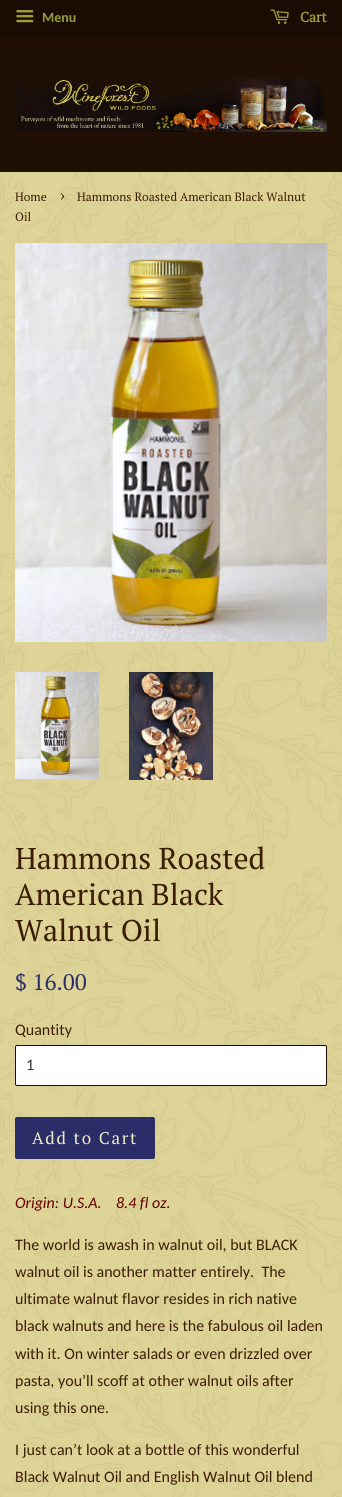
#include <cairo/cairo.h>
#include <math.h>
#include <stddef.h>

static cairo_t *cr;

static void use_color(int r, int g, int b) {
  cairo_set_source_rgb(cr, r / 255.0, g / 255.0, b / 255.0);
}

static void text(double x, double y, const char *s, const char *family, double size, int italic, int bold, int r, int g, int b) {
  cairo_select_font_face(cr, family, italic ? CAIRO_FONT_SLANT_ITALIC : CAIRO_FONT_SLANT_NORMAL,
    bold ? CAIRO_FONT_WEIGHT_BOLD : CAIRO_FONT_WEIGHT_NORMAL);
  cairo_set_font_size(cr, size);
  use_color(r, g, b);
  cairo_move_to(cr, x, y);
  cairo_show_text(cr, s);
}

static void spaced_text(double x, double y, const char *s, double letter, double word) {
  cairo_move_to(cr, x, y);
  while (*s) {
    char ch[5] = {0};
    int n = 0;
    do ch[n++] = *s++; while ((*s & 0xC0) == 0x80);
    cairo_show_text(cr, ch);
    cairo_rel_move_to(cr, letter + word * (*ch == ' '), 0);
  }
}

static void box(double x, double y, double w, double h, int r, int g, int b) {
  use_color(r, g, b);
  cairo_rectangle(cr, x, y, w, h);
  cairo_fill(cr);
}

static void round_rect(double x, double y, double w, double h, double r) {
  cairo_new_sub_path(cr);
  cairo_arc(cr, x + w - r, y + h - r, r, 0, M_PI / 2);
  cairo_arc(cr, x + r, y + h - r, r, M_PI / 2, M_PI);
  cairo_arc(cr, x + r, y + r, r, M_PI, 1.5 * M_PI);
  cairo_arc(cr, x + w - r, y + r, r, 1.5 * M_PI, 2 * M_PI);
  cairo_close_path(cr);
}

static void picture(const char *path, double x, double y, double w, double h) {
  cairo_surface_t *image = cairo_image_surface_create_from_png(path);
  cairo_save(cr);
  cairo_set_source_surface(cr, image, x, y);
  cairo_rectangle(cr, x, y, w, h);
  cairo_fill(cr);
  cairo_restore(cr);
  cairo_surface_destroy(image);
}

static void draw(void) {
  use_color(255, 255, 255);
  cairo_paint(cr);
  picture("img_01.png", 0, 172, 342, 1325);
  box(0, 0, 342, 37, 26, 11, 3);
  picture("img_02.png", 16, 10, 18, 13);
  picture("img_03.png", 270, 9, 19, 15);
  box(0, 37, 342, 135, 32, 15, 5);
  picture("img_04.png", 15, 77, 312, 55);
  picture("img_05.png", 15, 243, 312, 399);
  picture("img_06.png", 15, 672, 84, 107);
  picture("img_07.png", 129, 672, 84, 108);
  use_color(255, 255, 255);
  round_rect(15.5, 1045.5, 311, 40, 1.5);
  cairo_fill_preserve(cr);
  use_color(26, 11, 3);
  cairo_set_line_width(cr, 1);
  cairo_stroke(cr);
  use_color(43, 45, 104);
  round_rect(15, 1117, 140, 42, 2);
  cairo_fill(cr);
  text(42, 22, "Menu", "Carlito", 14, 0, 1, 153, 158, 59);
  text(300, 22, "Cart", "PT Serif", 14, 0, 1, 153, 158, 59);
  text(15, 201, "Home", "PT Serif", 12, 0, 0, 60, 29, 3);
  text(60, 201, "›", "PT Serif", 17, 0, 0, 60, 29, 3);
  text(77, 201, "Hammons Roasted American Black Walnut", "PT Serif", 12, 0, 0, 60, 29, 3);
  text(15, 221, "Oil", "PT Serif", 12, 0, 0, 60, 29, 3);
  text(15, 869, "Hammons Roasted", "PT Serif", 30, 0, 0, 60, 29, 3);
  text(15, 905, "American Black", "PT Serif", 30, 0, 0, 60, 29, 3);
  text(15, 941, "Walnut Oil", "PT Serif", 30, 0, 0, 60, 29, 3);
  text(15, 990, "$ 16.00", "PT Serif", 22.5, 0, 0, 43, 45, 104);
  text(15, 1035, "Quantity", "Carlito", 16, 0, 0, 60, 29, 3);
  text(26, 1070, "1", "Carlito", 16, 0, 0, 51, 51, 51);
  cairo_select_font_face(cr, "PT Serif", CAIRO_FONT_SLANT_NORMAL, CAIRO_FONT_WEIGHT_NORMAL);
  cairo_set_font_size(cr, 17);
  use_color(243, 239, 196);
  spaced_text(32, 1144, "Add to Cart", 1.75, 0);
  text(15, 1208, "Origin: U.S.A.    8.4 fl oz.", "Carlito", 16, 1, 0, 102, 0, 0);
  text(15, 1250, "The world is awash in walnut oil, but BLACK", "Carlito", 16, 0, 0, 60, 29, 3);
  text(15, 1277, "walnut oil is another matter entirely.  The", "Carlito", 16, 0, 0, 60, 29, 3);
  text(15, 1304, "ultimate walnut flavor resides in rich native", "Carlito", 16, 0, 0, 60, 29, 3);
  text(15, 1331, "black walnuts and here is the fabulous oil laden", "Carlito", 16, 0, 0, 60, 29, 3);
  text(15, 1359, "with it. On winter salads or even drizzled over", "Carlito", 16, 0, 0, 60, 29, 3);
  text(15, 1386, "pasta, you’ll scoff at other walnut oils after", "Carlito", 16, 0, 0, 60, 29, 3);
  text(15, 1413, "using this one.", "Carlito", 16, 0, 0, 60, 29, 3);
  text(15, 1455, "I just can’t look at a bottle of this wonderful", "Carlito", 16, 0, 0, 60, 29, 3);
  text(15, 1482, "Black Walnut Oil and English Walnut Oil blend", "Carlito", 16, 0, 0, 60, 29, 3);
}

int main(void) {
  cairo_surface_t *surface = cairo_image_surface_create(CAIRO_FORMAT_RGB24, 342, 1497);
  cr = cairo_create(surface);
  cairo_font_options_t *options = cairo_font_options_create();
  cairo_font_options_set_hint_metrics(options, CAIRO_HINT_METRICS_OFF);
  cairo_font_options_set_hint_style(options, CAIRO_HINT_STYLE_NONE);
  cairo_set_font_options(cr, options);
  cairo_set_miter_limit(cr, 4);
  draw();
  cairo_surface_write_to_png(surface, "out.png");
  cairo_font_options_destroy(options);
  cairo_destroy(cr);
  cairo_surface_destroy(surface);
  return 0;
}
